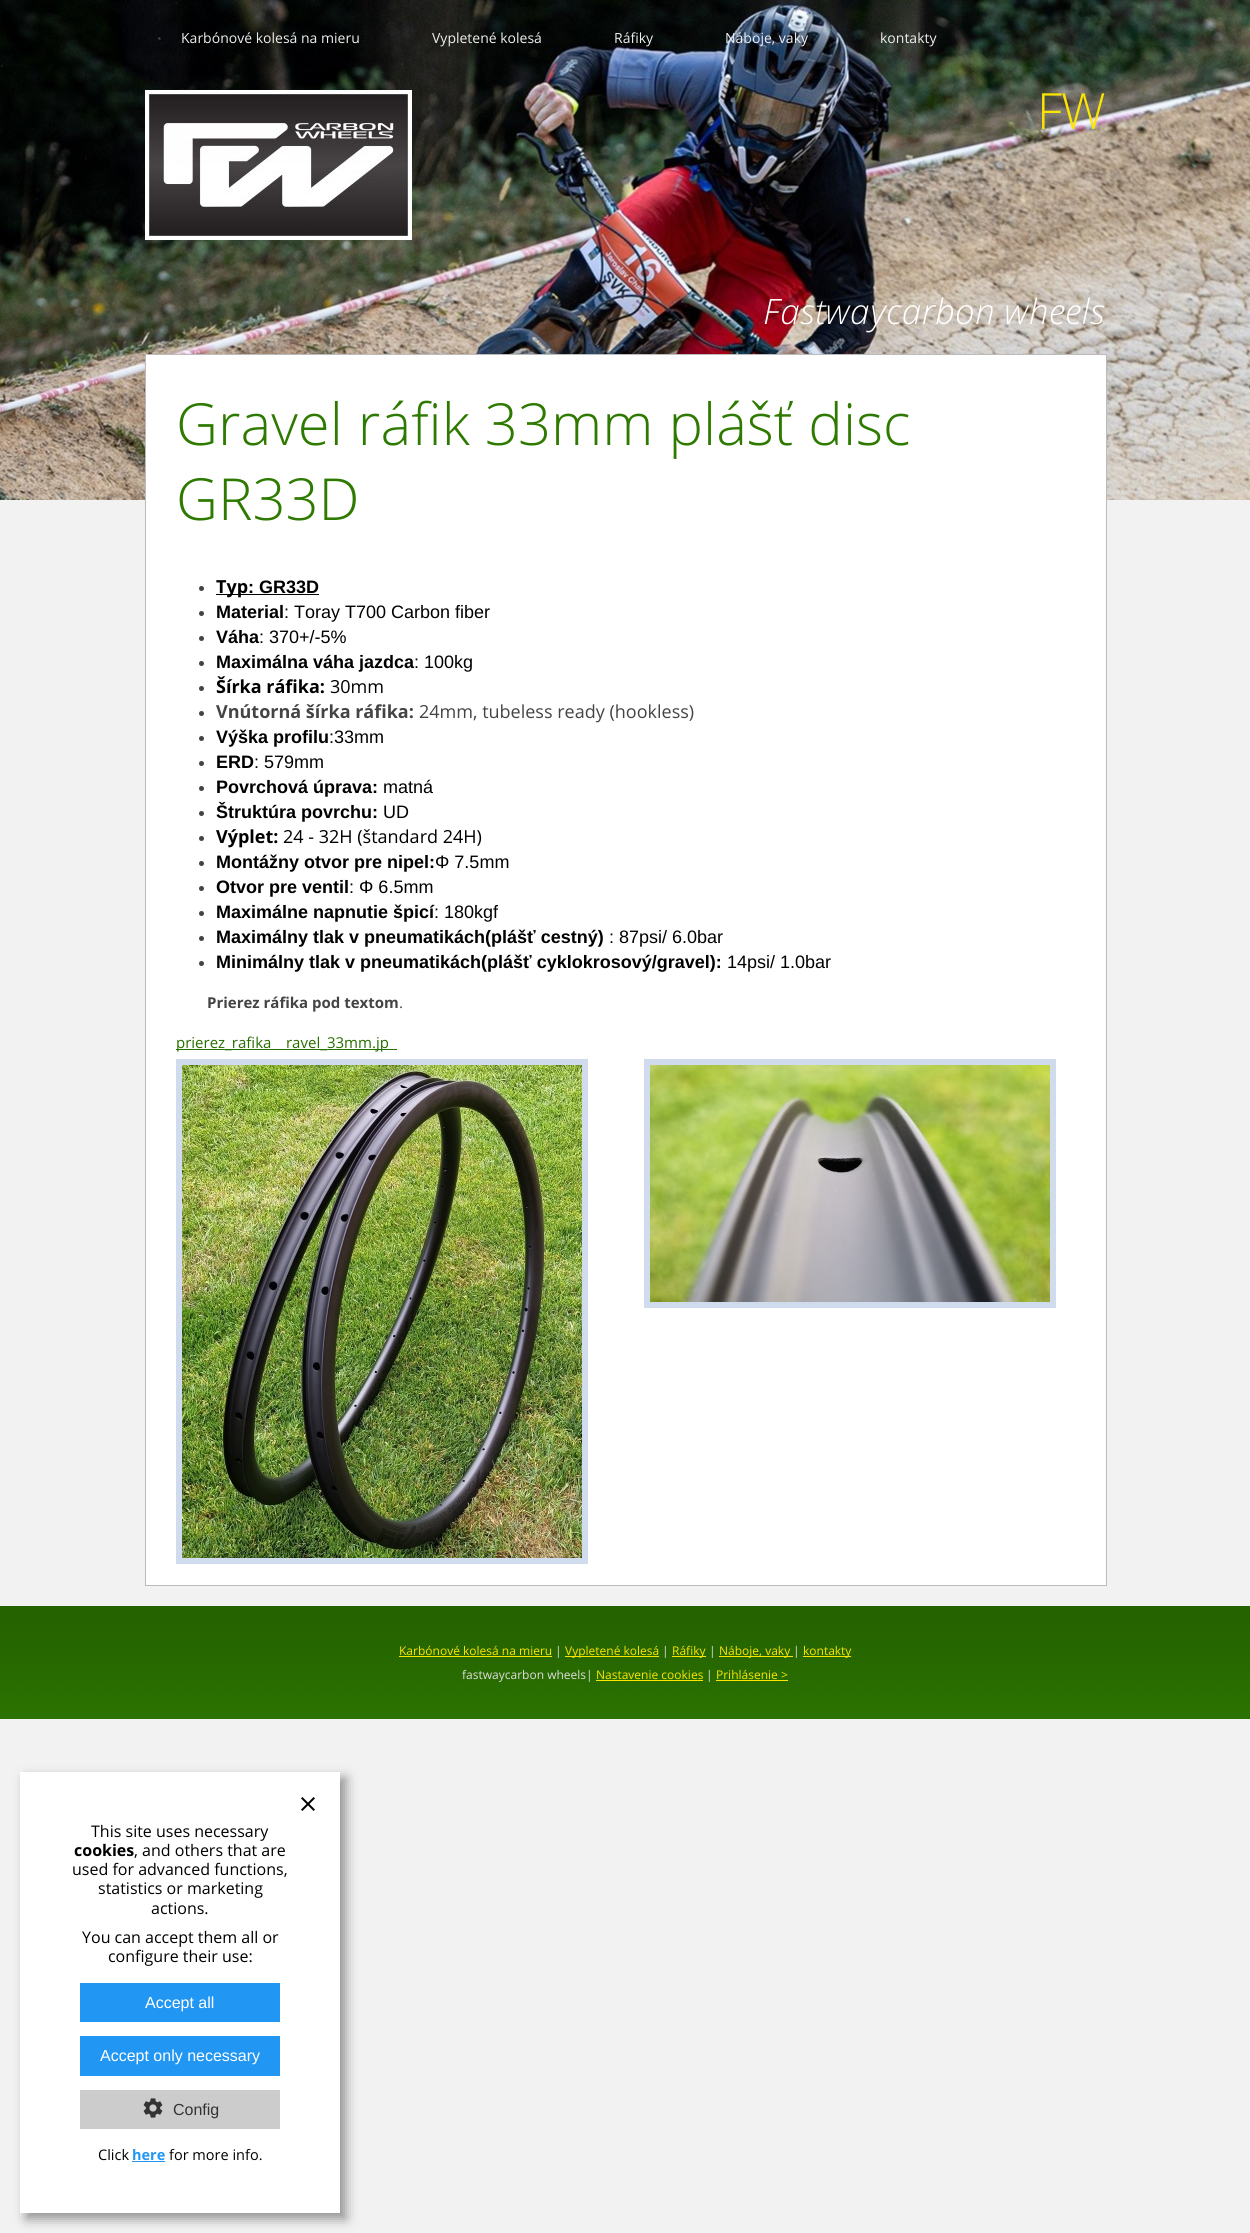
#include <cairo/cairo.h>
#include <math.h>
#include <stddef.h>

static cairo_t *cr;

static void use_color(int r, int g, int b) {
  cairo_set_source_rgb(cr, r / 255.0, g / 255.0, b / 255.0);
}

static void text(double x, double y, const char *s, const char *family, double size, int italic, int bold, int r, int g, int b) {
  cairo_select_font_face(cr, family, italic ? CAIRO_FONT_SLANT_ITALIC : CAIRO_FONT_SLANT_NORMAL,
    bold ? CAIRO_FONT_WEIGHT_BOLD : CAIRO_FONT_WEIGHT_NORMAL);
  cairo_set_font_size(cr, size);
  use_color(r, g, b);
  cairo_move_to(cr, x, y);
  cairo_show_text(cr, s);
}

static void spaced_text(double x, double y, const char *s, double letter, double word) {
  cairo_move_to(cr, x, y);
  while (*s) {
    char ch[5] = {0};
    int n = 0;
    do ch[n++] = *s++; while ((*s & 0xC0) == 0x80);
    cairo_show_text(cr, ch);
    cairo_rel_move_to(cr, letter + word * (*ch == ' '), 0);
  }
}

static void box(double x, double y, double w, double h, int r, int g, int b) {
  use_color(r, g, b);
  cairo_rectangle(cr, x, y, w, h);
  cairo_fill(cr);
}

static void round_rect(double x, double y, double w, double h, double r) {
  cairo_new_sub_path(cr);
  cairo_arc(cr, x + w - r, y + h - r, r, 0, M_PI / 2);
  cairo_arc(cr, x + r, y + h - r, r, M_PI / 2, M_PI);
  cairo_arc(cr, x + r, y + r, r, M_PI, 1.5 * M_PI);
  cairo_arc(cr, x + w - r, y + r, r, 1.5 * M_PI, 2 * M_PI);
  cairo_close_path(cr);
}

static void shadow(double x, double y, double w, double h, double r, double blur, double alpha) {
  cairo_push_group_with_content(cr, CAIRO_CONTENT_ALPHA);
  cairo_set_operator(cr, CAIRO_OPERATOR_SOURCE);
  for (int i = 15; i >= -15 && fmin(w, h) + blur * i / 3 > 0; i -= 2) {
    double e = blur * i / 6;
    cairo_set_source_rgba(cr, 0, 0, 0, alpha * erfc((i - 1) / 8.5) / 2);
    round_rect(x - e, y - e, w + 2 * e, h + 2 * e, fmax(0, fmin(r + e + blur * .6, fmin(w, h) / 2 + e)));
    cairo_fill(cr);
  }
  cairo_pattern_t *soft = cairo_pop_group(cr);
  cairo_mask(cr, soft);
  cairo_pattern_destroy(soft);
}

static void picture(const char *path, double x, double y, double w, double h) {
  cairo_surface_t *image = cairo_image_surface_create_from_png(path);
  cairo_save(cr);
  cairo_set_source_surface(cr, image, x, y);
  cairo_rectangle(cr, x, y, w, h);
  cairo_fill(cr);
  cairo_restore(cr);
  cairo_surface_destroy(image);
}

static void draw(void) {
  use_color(242, 242, 242);
  cairo_paint(cr);
  picture("img_01.png", 0, 0, 1250, 500);
  picture("img_02.png", 145, 90, 267, 150);
  use_color(255, 255, 255);
  cairo_rectangle(cr, 145.5, 354.5, 961, 1231);
  cairo_fill_preserve(cr);
  use_color(187, 187, 187);
  cairo_set_line_width(cr, 1);
  cairo_stroke(cr);
  use_color(68, 68, 68);
  cairo_arc(cr, 201.5, 588.5, 2.5, 0, 2 * M_PI);
  cairo_fill(cr);
  box(216, 594, 103, 1, 0, 0, 0);
  use_color(68, 68, 68);
  cairo_arc(cr, 201.5, 613.5, 2.5, 0, 2 * M_PI);
  cairo_fill(cr);
  cairo_arc(cr, 201.5, 638.5, 2.5, 0, 2 * M_PI);
  cairo_fill(cr);
  cairo_arc(cr, 201.5, 663.5, 2.5, 0, 2 * M_PI);
  cairo_fill(cr);
  cairo_arc(cr, 201.5, 688.5, 2.5, 0, 2 * M_PI);
  cairo_fill(cr);
  cairo_arc(cr, 201.5, 713.5, 2.5, 0, 2 * M_PI);
  cairo_fill(cr);
  cairo_arc(cr, 201.5, 738.5, 2.5, 0, 2 * M_PI);
  cairo_fill(cr);
  cairo_arc(cr, 201.5, 763.5, 2.5, 0, 2 * M_PI);
  cairo_fill(cr);
  cairo_arc(cr, 201.5, 788.5, 2.5, 0, 2 * M_PI);
  cairo_fill(cr);
  cairo_arc(cr, 201.5, 813.5, 2.5, 0, 2 * M_PI);
  cairo_fill(cr);
  cairo_arc(cr, 201.5, 838.5, 2.5, 0, 2 * M_PI);
  cairo_fill(cr);
  cairo_arc(cr, 201.5, 863.5, 2.5, 0, 2 * M_PI);
  cairo_fill(cr);
  cairo_arc(cr, 201.5, 888.5, 2.5, 0, 2 * M_PI);
  cairo_fill(cr);
  cairo_arc(cr, 201.5, 913.5, 2.5, 0, 2 * M_PI);
  cairo_fill(cr);
  cairo_arc(cr, 201.5, 938.5, 2.5, 0, 2 * M_PI);
  cairo_fill(cr);
  cairo_arc(cr, 201.5, 963.5, 2.5, 0, 2 * M_PI);
  cairo_fill(cr);
  box(176, 1049, 221, 1, 41, 110, 0);
  cairo_rectangle(cr, 179, 1062, 406, 499);
  use_color(208, 220, 237);
  cairo_set_line_width(cr, 6);
  cairo_stroke(cr);
  picture("img_03.png", 182, 1065, 400, 493);
  cairo_rectangle(cr, 647, 1062, 406, 243);
  cairo_stroke(cr);
  picture("img_04.png", 650, 1065, 400, 237);
  picture("img_05.png", 0, 1606, 1250, 113);
  box(399, 1656, 153, 1, 251, 229, 1);
  box(565, 1656, 94, 1, 251, 229, 1);
  box(672, 1656, 34, 1, 251, 229, 1);
  box(719, 1656, 74, 1, 251, 229, 1);
  box(803, 1656, 48, 1, 251, 229, 1);
  box(596, 1680, 107, 1, 251, 229, 1);
  box(716, 1680, 72, 1, 251, 229, 1);
  use_color(0, 0, 0);
  shadow(26, 1778, 320, 441, 0, 6, 0.4);
  box(20, 1772, 320, 441, 255, 255, 255);
  picture("img_06.png", 301, 1797, 14, 14);
  box(80, 1983, 200, 39, 33, 150, 243);
  box(80, 2036, 200, 40, 33, 150, 243);
  box(80, 2090, 200, 39, 204, 204, 204);
  picture("img_07.png", 143, 2098, 20, 20);
  box(132, 2161, 33, 1, 33, 150, 243);
  text(181, 43, "Karbónové kolesá na mieru", "Open Sans", 14, 0, 0, 238, 238, 238);
  text(432, 43, "Vypletené kolesá", "Open Sans", 14, 0, 0, 238, 238, 238);
  text(614, 43, "Ráfiky", "Open Sans", 14, 0, 0, 238, 238, 238);
  text(725, 43, "Náboje, vaky", "Open Sans", 14, 0, 0, 238, 238, 238);
  text(880, 43, "kontakty", "Open Sans", 14, 0, 0, 238, 238, 238);
  cairo_select_font_face(cr, "Open Sans Light", CAIRO_FONT_SLANT_NORMAL, CAIRO_FONT_WEIGHT_NORMAL);
  cairo_set_font_size(cr, 50);
  use_color(251, 229, 1);
  spaced_text(1037, 129, "FW", -1, 0);
  cairo_select_font_face(cr, "Open Sans Light", CAIRO_FONT_SLANT_ITALIC, CAIRO_FONT_WEIGHT_NORMAL);
  cairo_set_font_size(cr, 35);
  use_color(255, 255, 255);
  spaced_text(763, 324, "Fastwaycarbon wheels", 0.5, 0);
  text(176, 445, "Gravel ráfik 33mm plášť disc", "Open Sans Light", 58, 0, 0, 46, 122, 0);
  text(176, 520, "GR33D", "Open Sans Light", 58, 0, 0, 46, 122, 0);
  text(216, 593, "Typ", "Open Sans", 18, 0, 1, 0, 0, 0);
  text(248, 593, ": GR33D", "Liberation Sans", 18, 0, 1, 0, 0, 0);
  text(216, 618, "Material", "Liberation Sans", 18, 0, 1, 0, 0, 0);
  text(284, 618, ": Toray T700 Carbon fiber", "Liberation Sans", 18, 0, 0, 0, 0, 0);
  text(216, 643, "Váha", "Liberation Sans", 18, 0, 1, 0, 0, 0);
  text(259, 643, ": 370+/-5%", "Liberation Sans", 18, 0, 0, 0, 0, 0);
  text(216, 668, "Maximálna váha jazdca", "Liberation Sans", 18, 0, 1, 0, 0, 0);
  text(414, 668, ": 100kg", "Liberation Sans", 18, 0, 0, 0, 0, 0);
  text(216, 693, "Šírka ráfika:", "Open Sans", 18, 0, 1, 0, 0, 0);
  text(330, 693, "30mm", "Open Sans", 18, 0, 0, 0, 0, 0);
  text(216, 718, "Vnútorná šírka ráfika:", "Open Sans", 18, 0, 1, 68, 68, 68);
  text(419, 718, "24mm, tubeless ready (hookless)", "Open Sans", 18, 0, 0, 68, 68, 68);
  text(216, 743, "Výška profilu", "Liberation Sans", 18, 0, 1, 0, 0, 0);
  text(329, 743, ":33mm", "Liberation Sans", 18, 0, 0, 0, 0, 0);
  text(216, 768, "ERD", "Liberation Sans", 18, 0, 1, 0, 0, 0);
  text(254, 768, ": 579mm", "Liberation Sans", 18, 0, 0, 0, 0, 0);
  text(216, 793, "Povrchová úprava:", "Liberation Sans", 18, 0, 1, 0, 0, 0);
  text(383, 793, "matná", "Liberation Sans", 18, 0, 0, 0, 0, 0);
  text(216, 818, "Štruktúra povrchu:", "Liberation Sans", 18, 0, 1, 0, 0, 0);
  text(383, 818, "UD", "Liberation Sans", 18, 0, 0, 0, 0, 0);
  text(216, 843, "Výplet:", "Open Sans", 18, 0, 1, 0, 0, 0);
  text(283, 843, "24 - 32H (štandard 24H)", "Open Sans", 18, 0, 0, 0, 0, 0);
  text(216, 868, "Montážny otvor pre nipel:", "Liberation Sans", 18, 0, 1, 0, 0, 0);
  text(435, 868, "Φ 7.5mm", "Liberation Sans", 18, 0, 0, 0, 0, 0);
  text(216, 893, "Otvor pre ventil", "Liberation Sans", 18, 0, 1, 0, 0, 0);
  text(349, 893, ": Φ 6.5mm", "Liberation Sans", 18, 0, 0, 0, 0, 0);
  text(216, 918, "Maximálne napnutie špicí", "Liberation Sans", 18, 0, 1, 0, 0, 0);
  text(434, 918, ": 180kgf", "Liberation Sans", 18, 0, 0, 0, 0, 0);
  text(216, 943, "Maximálny tlak v pneumatikách(plášť cestný)", "Liberation Sans", 18, 0, 1, 0, 0, 0);
  text(609, 943, ": 87psi/ 6.0bar", "Liberation Sans", 18, 0, 0, 0, 0, 0);
  text(216, 968, "Minimálny tlak v pneumatikách(plášť cyklokrosový/gravel):", "Liberation Sans", 18, 0, 1, 0, 0, 0);
  text(727, 968, "14psi/ 1.0bar", "Liberation Sans", 18, 0, 0, 0, 0, 0);
  text(207, 1008, "Prierez ráfika pod textom", "Open Sans", 15, 0, 1, 68, 68, 68);
  text(399, 1008, ".", "Open Sans", 15, 0, 0, 68, 68, 68);
  text(176, 1048, "prierez_rafika", "Open Sans", 15, 0, 0, 41, 110, 0);
  text(286, 1048, "ravel_33mm.jp", "Open Sans", 15, 0, 0, 41, 110, 0);
  text(399, 1655, "Karbónové kolesá na mieru", "Open Sans", 12, 0, 0, 251, 229, 1);
  text(555, 1655, "|", "Open Sans", 12, 0, 0, 221, 221, 221);
  text(565, 1655, "Vypletené kolesá", "Open Sans", 12, 0, 0, 251, 229, 1);
  text(662, 1655, "|", "Open Sans", 12, 0, 0, 221, 221, 221);
  text(672, 1655, "Ráfiky", "Open Sans", 12, 0, 0, 251, 229, 1);
  text(709, 1655, "|", "Open Sans", 12, 0, 0, 221, 221, 221);
  text(719, 1655, "Náboje, vaky", "Open Sans", 12, 0, 0, 251, 229, 1);
  text(793, 1655, "|", "Open Sans", 12, 0, 0, 221, 221, 221);
  text(803, 1655, "kontakty", "Open Sans", 12, 0, 0, 251, 229, 1);
  text(462, 1679, "fastwaycarbon wheels|", "Open Sans", 12, 0, 0, 221, 221, 221);
  text(596, 1679, "Nastavenie cookies", "Open Sans", 12, 0, 0, 251, 229, 1);
  text(706, 1679, "|", "Open Sans", 12, 0, 0, 221, 221, 221);
  text(716, 1679, "Prihlásenie >", "Open Sans", 12, 0, 0, 251, 229, 1);
  text(91, 1837, "This site uses necessary", "Open Sans", 16, 0, 0, 0, 0, 0);
  text(74, 1856, "cookies", "Open Sans", 16, 0, 1, 0, 0, 0);
  text(134, 1856, ", and others that are", "Open Sans", 16, 0, 0, 0, 0, 0);
  text(72, 1875, "used for advanced functions,", "Open Sans", 16, 0, 0, 0, 0, 0);
  text(98, 1894, "statistics or marketing", "Open Sans", 16, 0, 0, 0, 0, 0);
  text(151, 1914, "actions.", "Open Sans", 16, 0, 0, 0, 0, 0);
  text(82, 1943, "You can accept them all or", "Open Sans", 16, 0, 0, 0, 0, 0);
  text(108, 1962, "configure their use:", "Open Sans", 16, 0, 0, 0, 0, 0);
  text(145, 2008, "Accept all", "Liberation Sans", 16, 0, 0, 255, 255, 255);
  text(100, 2061, "Accept only necessary", "Liberation Sans", 16, 0, 0, 255, 255, 255);
  text(173, 2115, "Config", "Liberation Sans", 16, 0, 0, 51, 51, 51);
  text(98, 2160, "Click", "Open Sans", 14.5, 0, 0, 0, 0, 0);
  text(132, 2160, "here", "Open Sans", 14.5, 0, 1, 33, 150, 243);
  text(169, 2160, "for more info.", "Open Sans", 14.5, 0, 0, 0, 0, 0);
}

int main(void) {
  cairo_surface_t *surface = cairo_image_surface_create(CAIRO_FORMAT_RGB24, 1250, 2233);
  cr = cairo_create(surface);
  cairo_font_options_t *options = cairo_font_options_create();
  cairo_font_options_set_hint_metrics(options, CAIRO_HINT_METRICS_OFF);
  cairo_font_options_set_hint_style(options, CAIRO_HINT_STYLE_NONE);
  cairo_set_font_options(cr, options);
  cairo_set_miter_limit(cr, 4);
  draw();
  cairo_surface_write_to_png(surface, "out.png");
  cairo_font_options_destroy(options);
  cairo_destroy(cr);
  cairo_surface_destroy(surface);
  return 0;
}
